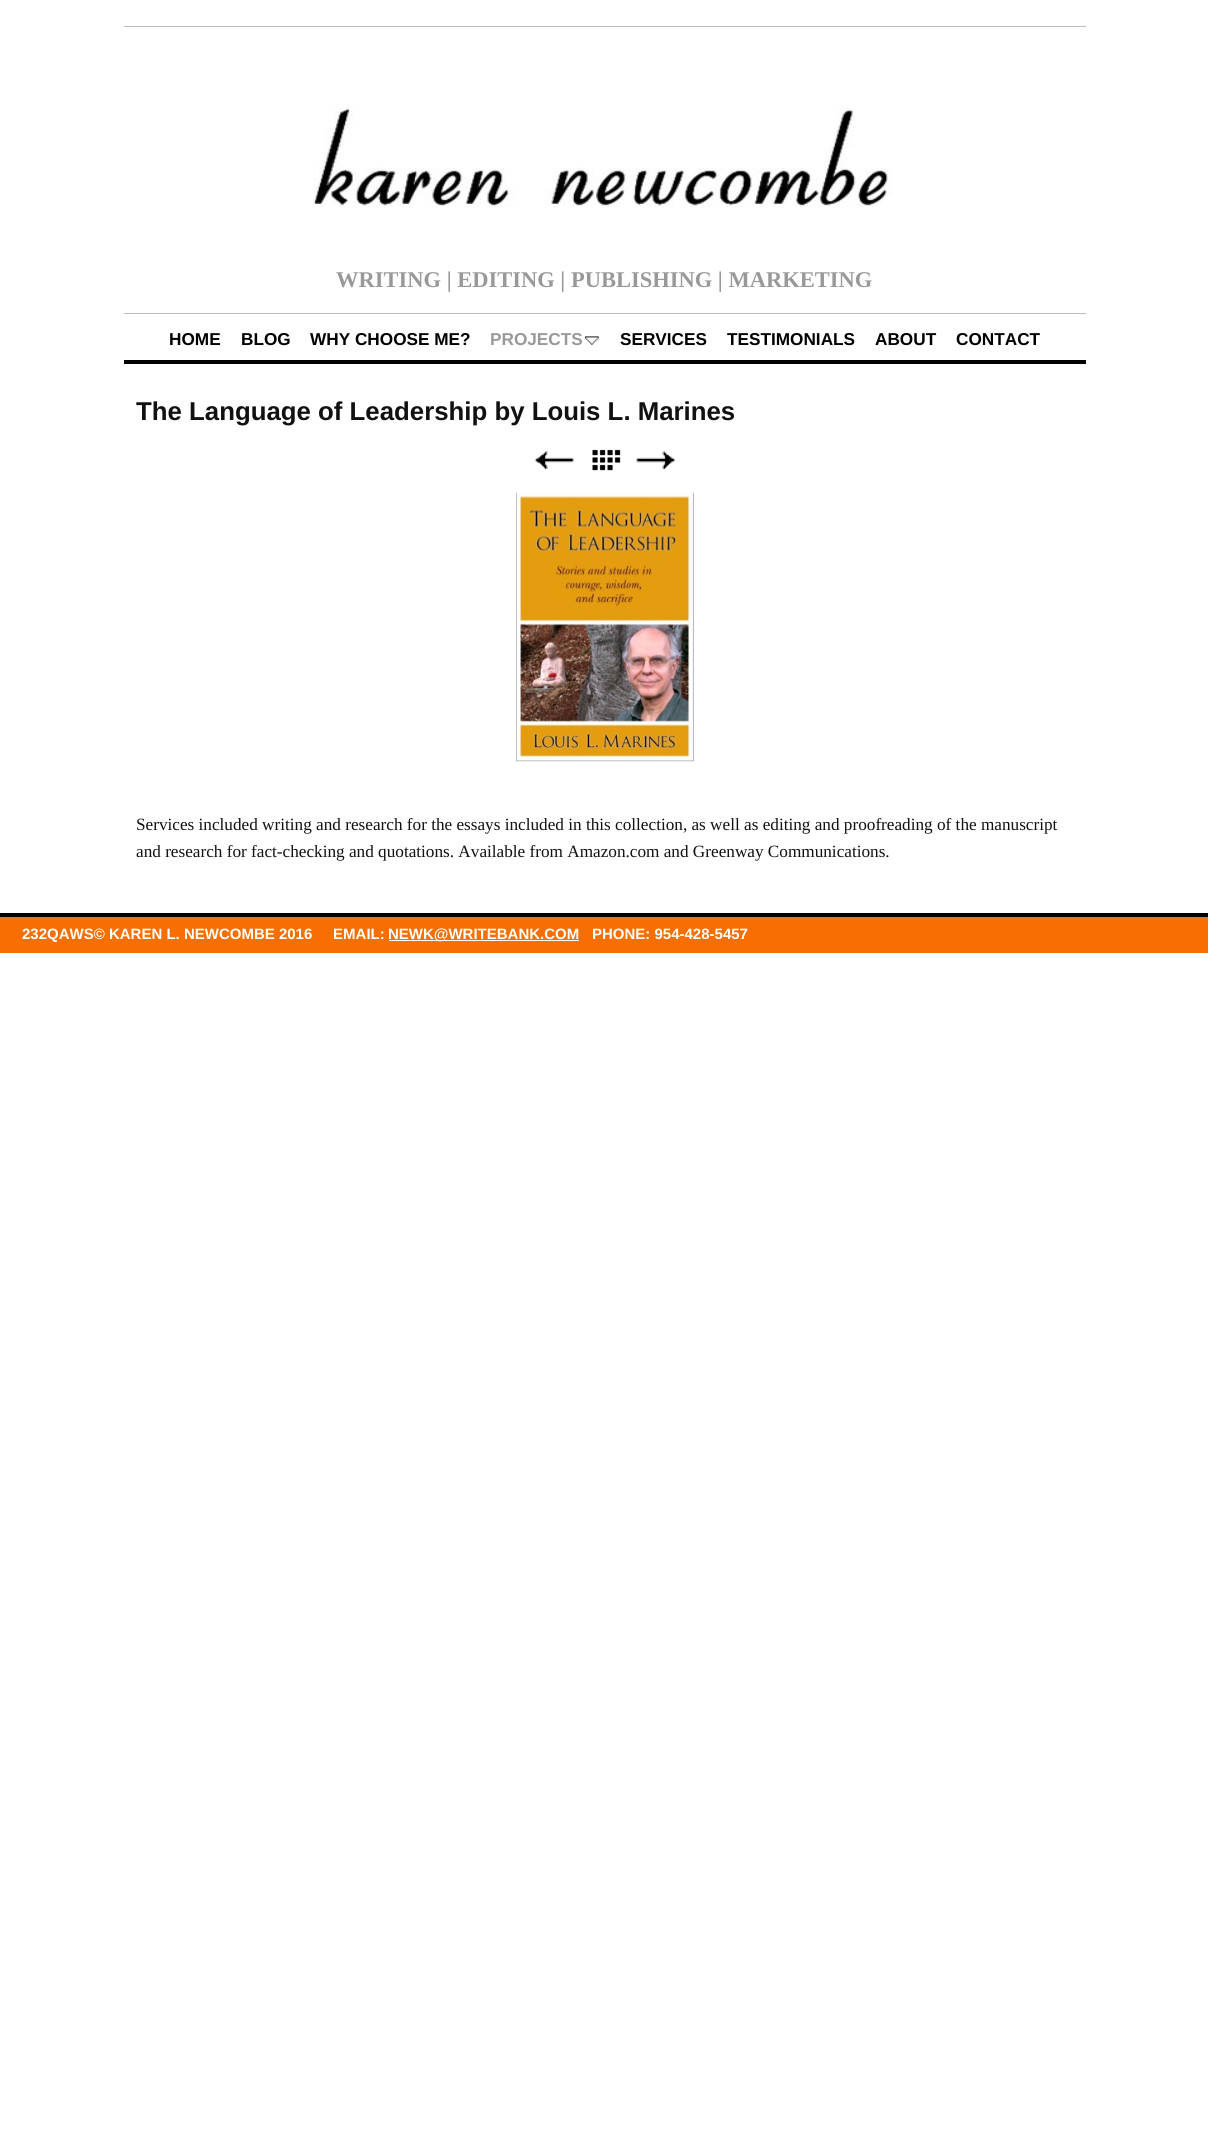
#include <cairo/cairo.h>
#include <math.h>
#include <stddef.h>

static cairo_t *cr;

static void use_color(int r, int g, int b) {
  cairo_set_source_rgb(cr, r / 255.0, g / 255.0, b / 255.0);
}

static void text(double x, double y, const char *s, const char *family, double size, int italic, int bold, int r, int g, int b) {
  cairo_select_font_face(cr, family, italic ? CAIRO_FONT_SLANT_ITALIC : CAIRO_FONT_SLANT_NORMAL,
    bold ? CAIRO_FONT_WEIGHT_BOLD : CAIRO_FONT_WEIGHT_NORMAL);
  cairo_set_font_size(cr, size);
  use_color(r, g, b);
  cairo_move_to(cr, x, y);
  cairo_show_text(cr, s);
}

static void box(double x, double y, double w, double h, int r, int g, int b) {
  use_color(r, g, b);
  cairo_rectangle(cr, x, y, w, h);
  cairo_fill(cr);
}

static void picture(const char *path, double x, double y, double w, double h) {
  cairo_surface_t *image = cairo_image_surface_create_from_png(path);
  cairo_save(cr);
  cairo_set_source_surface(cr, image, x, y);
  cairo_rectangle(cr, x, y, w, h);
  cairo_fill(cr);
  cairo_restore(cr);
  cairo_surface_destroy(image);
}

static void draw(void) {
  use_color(255, 255, 255);
  cairo_paint(cr);
  picture("img_01.png", 313, 108, 579, 99);
  box(124, 26, 962, 1, 187, 187, 187);
  box(124, 313, 962, 1, 187, 187, 187);
  box(124, 360, 962, 4, 0, 0, 0);
  picture("img_02.png", 585, 336, 14, 9);
  picture("img_03.png", 535, 451, 39, 18);
  picture("img_04.png", 534, 451, 40, 18);
  picture("img_05.png", 592, 450, 29, 21);
  picture("img_06.png", 592, 449, 29, 22);
  picture("img_07.png", 636, 451, 40, 18);
  picture("img_08.png", 636, 451, 40, 18);
  picture("img_09.png", 516, 492, 178, 270);
  box(0, 917, 1208, 36, 246, 111, 0);
  box(0, 913, 1208, 4, 0, 0, 0);
  box(389, 940, 190, 1, 255, 255, 255);
  text(336, 287, "WRITING | EDITING | PUBLISHING | MARKETING", "Liberation Serif", 22.5, 0, 1, 153, 153, 153);
  text(169, 345, "HOME", "Liberation Sans", 17.2, 0, 1, 0, 0, 0);
  text(241, 345, "BLOG", "Liberation Sans", 17.2, 0, 1, 0, 0, 0);
  text(310, 345, "WHY CHOOSE ME?", "Liberation Sans", 17.2, 0, 1, 0, 0, 0);
  text(490, 345, "PROJECTS", "Liberation Sans", 17.2, 0, 1, 153, 153, 153);
  text(620, 345, "SERVICES", "Liberation Sans", 17.2, 0, 1, 0, 0, 0);
  text(727, 345, "TESTIMONIALS", "Liberation Sans", 17.2, 0, 1, 0, 0, 0);
  text(875, 345, "ABOUT", "Liberation Sans", 17.2, 0, 1, 0, 0, 0);
  text(956, 345, "CONTACT", "Liberation Sans", 17.2, 0, 1, 0, 0, 0);
  text(136, 420, "The Language of Leadership by Louis L. Marines", "Liberation Sans", 25.8, 0, 1, 17, 17, 17);
  text(136, 830, "Services included writing and research for the essays included in this collection, as well as editing and proofreading of the manuscript", "Liberation Serif", 17.2, 0, 0, 17, 17, 17);
  text(136, 857, "and research for fact-checking and quotations. Available from Amazon.com and Greenway Communications.", "Liberation Serif", 17.2, 0, 0, 17, 17, 17);
  text(22, 939, "232QAWS© KAREN L. NEWCOMBE 2016     EMAIL:", "Liberation Sans", 15, 0, 1, 255, 255, 255);
  text(388, 939, "NEWK@WRITEBANK.COM", "Liberation Sans", 15, 0, 1, 255, 255, 255);
  text(592, 939, "PHONE: 954-428-5457", "Liberation Sans", 15, 0, 1, 255, 255, 255);
}

int main(void) {
  cairo_surface_t *surface = cairo_image_surface_create(CAIRO_FORMAT_RGB24, 1208, 2131);
  cr = cairo_create(surface);
  cairo_font_options_t *options = cairo_font_options_create();
  cairo_font_options_set_hint_metrics(options, CAIRO_HINT_METRICS_OFF);
  cairo_font_options_set_hint_style(options, CAIRO_HINT_STYLE_NONE);
  cairo_set_font_options(cr, options);
  cairo_set_miter_limit(cr, 4);
  draw();
  cairo_surface_write_to_png(surface, "out.png");
  cairo_font_options_destroy(options);
  cairo_destroy(cr);
  cairo_surface_destroy(surface);
  return 0;
}
